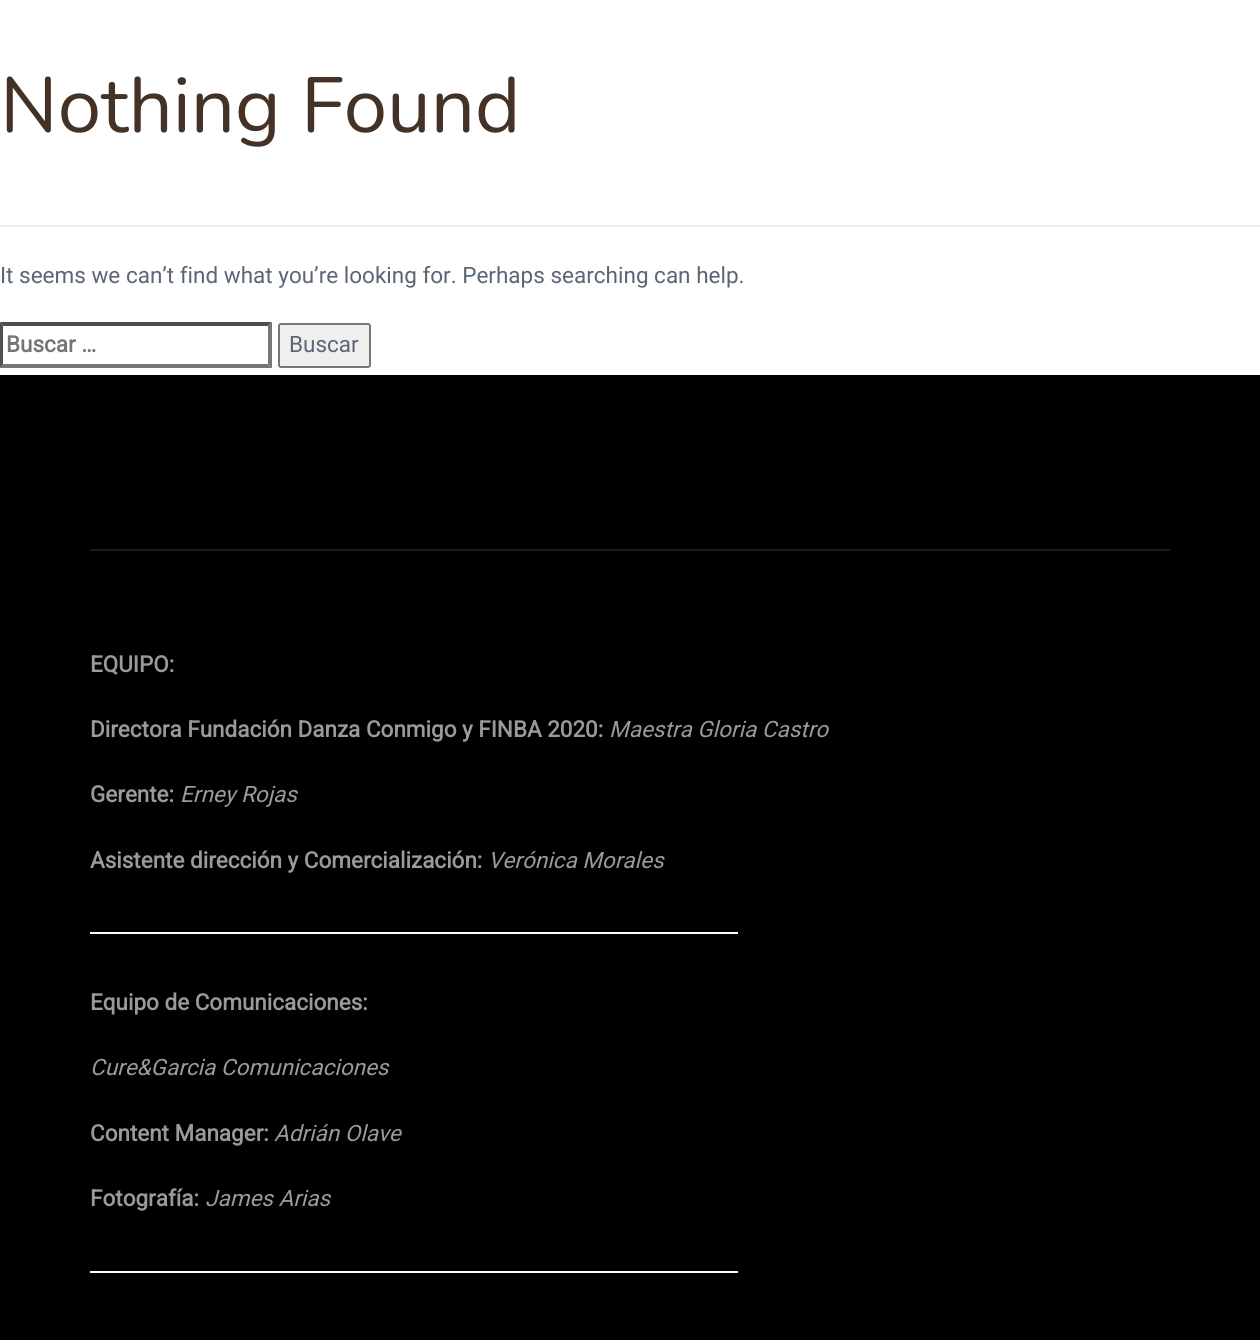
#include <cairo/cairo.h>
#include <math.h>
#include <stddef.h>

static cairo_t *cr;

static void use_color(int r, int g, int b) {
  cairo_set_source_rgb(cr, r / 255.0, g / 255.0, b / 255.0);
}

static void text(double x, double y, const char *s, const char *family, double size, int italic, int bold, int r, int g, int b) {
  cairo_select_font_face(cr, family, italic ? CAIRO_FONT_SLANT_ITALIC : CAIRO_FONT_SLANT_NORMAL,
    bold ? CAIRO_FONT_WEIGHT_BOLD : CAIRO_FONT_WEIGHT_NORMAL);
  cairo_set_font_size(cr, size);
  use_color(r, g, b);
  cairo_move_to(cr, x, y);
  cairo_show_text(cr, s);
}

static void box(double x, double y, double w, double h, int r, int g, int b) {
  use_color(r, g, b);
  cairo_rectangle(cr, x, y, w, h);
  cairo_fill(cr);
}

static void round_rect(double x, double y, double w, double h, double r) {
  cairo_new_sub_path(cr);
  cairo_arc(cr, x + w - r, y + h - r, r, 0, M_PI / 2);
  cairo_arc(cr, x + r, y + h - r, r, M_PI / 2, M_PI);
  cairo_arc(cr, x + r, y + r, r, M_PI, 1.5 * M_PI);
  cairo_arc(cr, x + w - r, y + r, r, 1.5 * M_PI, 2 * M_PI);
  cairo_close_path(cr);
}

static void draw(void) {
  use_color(255, 255, 255);
  cairo_paint(cr);
  box(0, 225, 1260, 2, 238, 238, 238);
  use_color(79, 79, 79);
  cairo_new_path(cr);
  cairo_move_to(cr, 0, 322);
  cairo_line_to(cr, 272, 322);
  cairo_line_to(cr, 268, 326);
  cairo_line_to(cr, 3, 326);
  cairo_close_path(cr);
  cairo_fill(cr);
  use_color(118, 118, 118);
  cairo_new_path(cr);
  cairo_move_to(cr, 272, 322);
  cairo_line_to(cr, 272, 368);
  cairo_line_to(cr, 268, 364);
  cairo_line_to(cr, 268, 326);
  cairo_close_path(cr);
  cairo_fill(cr);
  cairo_new_path(cr);
  cairo_move_to(cr, 272, 368);
  cairo_line_to(cr, 0, 368);
  cairo_line_to(cr, 3, 364);
  cairo_line_to(cr, 268, 364);
  cairo_close_path(cr);
  cairo_fill(cr);
  use_color(79, 79, 79);
  cairo_new_path(cr);
  cairo_move_to(cr, 0, 368);
  cairo_line_to(cr, 0, 322);
  cairo_line_to(cr, 3, 326);
  cairo_line_to(cr, 3, 364);
  cairo_close_path(cr);
  cairo_fill(cr);
  use_color(239, 239, 239);
  round_rect(279, 324, 91, 43, 2);
  cairo_fill_preserve(cr);
  use_color(118, 118, 118);
  cairo_stroke(cr);
  box(0, 375, 1260, 965, 0, 0, 0);
  box(90, 549, 1080, 2, 26, 26, 26);
  box(90, 932, 648, 2, 255, 255, 255);
  box(90, 1271, 648, 2, 255, 255, 255);
  text(0, 132, "Nothing Found", "Nunito ExtraLight", 78, 0, 0, 68, 50, 39);
  text(0, 283, "It seems we can’t find what you’re looking for. Perhaps searching can help.", "Roboto", 22.5, 0, 0, 91, 102, 116);
  text(6, 352, "Buscar …", "Roboto", 22.5, 0, 1, 117, 117, 117);
  text(289, 352, "Buscar", "Roboto", 22.5, 0, 0, 91, 102, 116);
  text(90, 672, "EQUIPO:", "Roboto", 22.5, 0, 1, 154, 154, 154);
  text(90, 737, "Directora Fundación Danza Conmigo y FINBA 2020:", "Roboto", 22.5, 0, 1, 154, 154, 154);
  text(609, 737, "Maestra Gloria Castro", "Roboto", 22.5, 1, 0, 154, 154, 154);
  text(90, 802, "Gerente:", "Roboto", 22.5, 0, 1, 154, 154, 154);
  text(180, 802, "Erney Rojas", "Roboto", 22.5, 1, 0, 154, 154, 154);
  text(90, 868, "Asistente dirección y Comercialización:", "Roboto", 22.5, 0, 1, 154, 154, 154);
  text(488, 868, "Verónica Morales", "Roboto", 22.5, 1, 0, 154, 154, 154);
  text(90, 1010, "Equipo de Comunicaciones:", "Roboto", 22.5, 0, 1, 154, 154, 154);
  text(90, 1075, "Cure&Garcia Comunicaciones", "Roboto", 22.5, 1, 0, 154, 154, 154);
  text(90, 1141, "Content Manager:", "Roboto", 22.5, 0, 1, 154, 154, 154);
  text(274, 1141, "Adrián Olave", "Roboto", 22.5, 1, 0, 154, 154, 154);
  text(90, 1206, "Fotografía:", "Roboto", 22.5, 0, 1, 154, 154, 154);
  text(205, 1206, "James Arias", "Roboto", 22.5, 1, 0, 154, 154, 154);
}

int main(void) {
  cairo_surface_t *surface = cairo_image_surface_create(CAIRO_FORMAT_RGB24, 1260, 1340);
  cr = cairo_create(surface);
  cairo_font_options_t *options = cairo_font_options_create();
  cairo_font_options_set_hint_metrics(options, CAIRO_HINT_METRICS_OFF);
  cairo_font_options_set_hint_style(options, CAIRO_HINT_STYLE_NONE);
  cairo_set_font_options(cr, options);
  cairo_set_miter_limit(cr, 4);
  draw();
  cairo_surface_write_to_png(surface, "out.png");
  cairo_font_options_destroy(options);
  cairo_destroy(cr);
  cairo_surface_destroy(surface);
  return 0;
}
